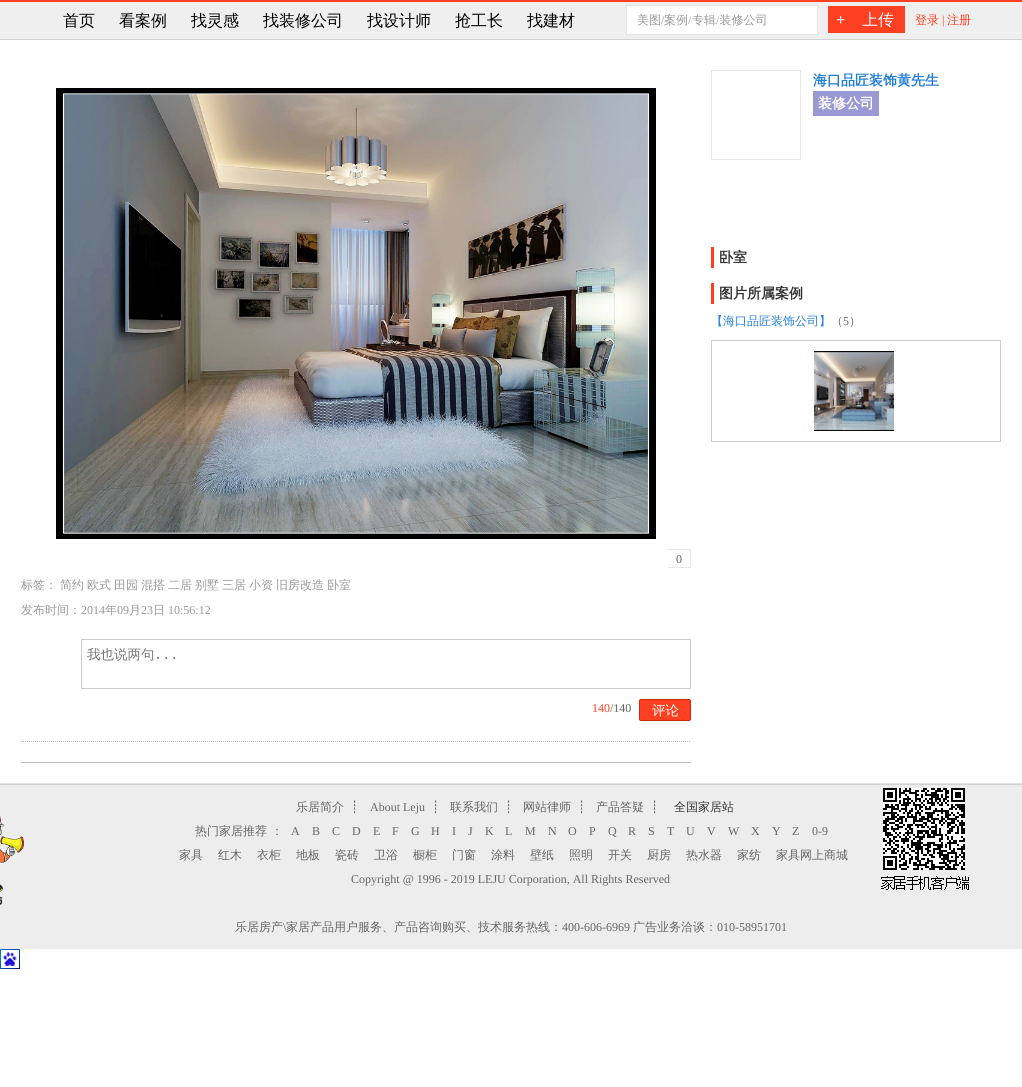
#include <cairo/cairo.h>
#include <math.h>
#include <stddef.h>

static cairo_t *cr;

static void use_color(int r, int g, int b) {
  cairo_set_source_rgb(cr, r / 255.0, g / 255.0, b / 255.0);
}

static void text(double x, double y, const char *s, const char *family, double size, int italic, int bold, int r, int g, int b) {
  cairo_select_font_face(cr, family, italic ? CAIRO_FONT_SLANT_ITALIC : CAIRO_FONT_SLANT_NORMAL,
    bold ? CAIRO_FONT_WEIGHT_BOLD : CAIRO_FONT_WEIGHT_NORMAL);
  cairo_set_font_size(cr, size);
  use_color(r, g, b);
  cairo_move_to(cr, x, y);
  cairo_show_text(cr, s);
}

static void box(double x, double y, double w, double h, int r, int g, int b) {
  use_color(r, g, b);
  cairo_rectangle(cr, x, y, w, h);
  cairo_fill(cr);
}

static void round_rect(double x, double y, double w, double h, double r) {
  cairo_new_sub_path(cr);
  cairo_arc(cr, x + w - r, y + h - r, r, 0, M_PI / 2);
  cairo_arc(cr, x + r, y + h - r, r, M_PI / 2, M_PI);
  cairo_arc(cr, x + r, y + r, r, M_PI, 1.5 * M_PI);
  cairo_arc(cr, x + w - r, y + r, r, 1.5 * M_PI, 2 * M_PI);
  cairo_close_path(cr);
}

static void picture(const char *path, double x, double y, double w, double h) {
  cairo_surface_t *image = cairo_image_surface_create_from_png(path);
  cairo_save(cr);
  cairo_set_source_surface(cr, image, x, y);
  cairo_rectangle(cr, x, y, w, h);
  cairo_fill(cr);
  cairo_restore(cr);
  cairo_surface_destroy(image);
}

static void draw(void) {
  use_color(255, 255, 255);
  cairo_paint(cr);
  box(0, 2, 1022, 37, 239, 239, 239);
  box(0, 0, 1022, 2, 253, 64, 34);
  box(0, 39, 1022, 1, 210, 210, 210);
  use_color(255, 255, 255);
  cairo_rectangle(cr, 626.5, 5.5, 191, 29);
  cairo_fill_preserve(cr);
  use_color(227, 229, 230);
  cairo_set_line_width(cr, 1);
  cairo_stroke(cr);
  box(828, 6, 77, 27, 253, 64, 34);
  cairo_rectangle(cr, 711.5, 70.5, 89, 89);
  use_color(232, 232, 232);
  cairo_stroke(cr);
  box(813, 91, 66, 25, 153, 154, 211);
  box(711, 247, 3, 21, 253, 64, 34);
  box(711, 283, 3, 21, 253, 64, 34);
  cairo_rectangle(cr, 711.5, 340.5, 289, 101);
  use_color(204, 204, 204);
  cairo_stroke(cr);
  picture("img_01.png", 814, 351, 80, 80);
  picture("img_02.png", 56, 88, 600, 451);
  box(668, 549, 23, 1, 232, 232, 232);
  box(690, 549, 1, 19, 232, 232, 232);
  box(668, 567, 23, 1, 232, 232, 232);
  cairo_rectangle(cr, 81.5, 639.5, 609, 49);
  use_color(204, 204, 204);
  cairo_stroke(cr);
  use_color(253, 64, 34);
  round_rect(639.5, 699.5, 51, 21, 1.5);
  cairo_fill_preserve(cr);
  use_color(203, 38, 12);
  cairo_stroke(cr);
  cairo_new_path(cr);
  cairo_move_to(cr, 21, 741.5);
  cairo_line_to(cr, 691, 741.5);
  use_color(188, 188, 188);
  cairo_set_dash(cr, (double[]){1, 1}, 2, 0);
  cairo_stroke(cr);
  box(21, 762, 670, 1, 188, 188, 188);
  box(0, 783, 1022, 1, 224, 224, 224);
  box(0, 785, 1022, 164, 237, 237, 237);
  box(0, 784, 1022, 1, 210, 210, 210);
  picture("img_03.png", 881, 788, 88, 102);
  picture("img_04.png", 0, 815, 24, 90);
  picture("img_05.png", 0, 949, 20, 20);
  text(63, 26, "首页", "WenQuanYi Zen Hei Medium", 16, 0, 0, 1, 0, 0);
  text(119, 26, "看案例", "WenQuanYi Zen Hei Medium", 16, 0, 0, 1, 0, 0);
  text(191, 26, "找灵感", "WenQuanYi Zen Hei Medium", 16, 0, 0, 1, 0, 0);
  text(263, 26, "找装修公司", "WenQuanYi Zen Hei Medium", 16, 0, 0, 1, 0, 0);
  text(367, 26, "找设计师", "WenQuanYi Zen Hei Medium", 16, 0, 0, 1, 0, 0);
  text(455, 26, "抢工长", "WenQuanYi Zen Hei Medium", 16, 0, 0, 1, 0, 0);
  text(527, 26, "找建材", "WenQuanYi Zen Hei Medium", 16, 0, 0, 1, 0, 0);
  text(637, 24, "美图", "WenQuanYi Zen Hei Medium", 12, 0, 0, 153, 153, 153);
  text(661, 24, "/", "Liberation Serif", 12, 0, 0, 153, 153, 153);
  text(664, 24, "案例", "WenQuanYi Zen Hei Medium", 12, 0, 0, 153, 153, 153);
  text(688, 24, "/", "Liberation Serif", 12, 0, 0, 153, 153, 153);
  text(692, 24, "专辑 装修公司", "WenQuanYi Zen Hei Medium", 12, 0, 0, 153, 153, 153);
  text(716, 24, "/", "Liberation Serif", 12, 0, 0, 153, 153, 153);
  text(836, 25, "+", "Liberation Serif", 16, 0, 1, 255, 255, 255);
  text(862, 25, "上传", "WenQuanYi Zen Hei Medium", 16, 0, 0, 255, 255, 255);
  text(915, 24, "登录", "WenQuanYi Zen Hei Medium", 12, 0, 0, 253, 64, 34);
  text(942, 24, "|", "Liberation Serif", 12, 0, 0, 253, 64, 34);
  text(947, 24, "注册", "WenQuanYi Zen Hei Medium", 12, 0, 0, 253, 64, 34);
  text(813, 85, "海口品匠装饰黄先生", "WenQuanYi Zen Hei", 14, 0, 1, 33, 127, 217);
  text(818, 108, "装修公司", "WenQuanYi Zen Hei", 14, 0, 1, 255, 255, 255);
  text(719, 262, "卧室", "WenQuanYi Zen Hei", 14, 0, 1, 51, 51, 51);
  text(719, 298, "图片所属案例", "WenQuanYi Zen Hei", 14, 0, 1, 51, 51, 51);
  text(711, 325, "【海口品匠装饰公司】", "WenQuanYi Zen Hei Medium", 12, 0, 0, 33, 127, 217);
  text(831, 325, "（", "WenQuanYi Zen Hei Medium", 12, 0, 0, 102, 102, 102);
  text(843, 325, "5", "Liberation Serif", 12, 0, 0, 102, 102, 102);
  text(849, 325, "）", "WenQuanYi Zen Hei Medium", 12, 0, 0, 102, 102, 102);
  text(676, 563, "0", "Liberation Serif", 12, 0, 0, 102, 102, 102);
  text(21, 589, "标签：", "WenQuanYi Zen Hei Medium", 12, 0, 0, 153, 153, 153);
  text(60, 589, "简约", "WenQuanYi Zen Hei Medium", 12, 0, 0, 153, 153, 153);
  text(87, 589, "欧式", "WenQuanYi Zen Hei Medium", 12, 0, 0, 153, 153, 153);
  text(114, 589, "田园", "WenQuanYi Zen Hei Medium", 12, 0, 0, 153, 153, 153);
  text(141, 589, "混搭", "WenQuanYi Zen Hei Medium", 12, 0, 0, 153, 153, 153);
  text(168, 589, "二居", "WenQuanYi Zen Hei Medium", 12, 0, 0, 153, 153, 153);
  text(195, 589, "别墅", "WenQuanYi Zen Hei Medium", 12, 0, 0, 153, 153, 153);
  text(222, 589, "三居", "WenQuanYi Zen Hei Medium", 12, 0, 0, 153, 153, 153);
  text(249, 589, "小资", "WenQuanYi Zen Hei Medium", 12, 0, 0, 153, 153, 153);
  text(276, 589, "旧房改造", "WenQuanYi Zen Hei Medium", 12, 0, 0, 153, 153, 153);
  text(327, 589, "卧室", "WenQuanYi Zen Hei Medium", 12, 0, 0, 153, 153, 153);
  text(21, 614, "发布时间：", "WenQuanYi Zen Hei Medium", 12, 0, 0, 153, 153, 153);
  text(81, 614, "2014", "Liberation Serif", 12, 0, 0, 153, 153, 153);
  text(105, 614, "年", "WenQuanYi Zen Hei Medium", 12, 0, 0, 153, 153, 153);
  text(117, 614, "09", "Liberation Serif", 12, 0, 0, 153, 153, 153);
  text(129, 614, "月", "WenQuanYi Zen Hei Medium", 12, 0, 0, 153, 153, 153);
  text(141, 614, "23", "Liberation Serif", 12, 0, 0, 153, 153, 153);
  text(153, 614, "日", "WenQuanYi Zen Hei Medium", 12, 0, 0, 153, 153, 153);
  text(168, 614, "10:56:12", "Liberation Serif", 12, 0, 0, 153, 153, 153);
  text(87, 659, "我也说两句", "WenQuanYi Zen Hei Medium", 13.5, 0, 0, 117, 117, 117);
  text(154, 659, "...", "DejaVu Sans Mono", 13.5, 0, 0, 117, 117, 117);
  text(592, 712, "140", "Liberation Serif", 12, 0, 0, 253, 64, 34);
  text(610, 712, "/140", "Liberation Serif", 12, 0, 0, 102, 102, 102);
  text(652, 715, "评论", "WenQuanYi Zen Hei Medium", 13.5, 0, 0, 255, 255, 255);
  text(296, 811, "乐居简介", "WenQuanYi Zen Hei Medium", 12, 0, 0, 102, 102, 102);
  text(351, 811, "┊", "DejaVu Sans", 12, 0, 0, 102, 102, 102);
  text(370, 811, "About Leju", "Liberation Serif", 12, 0, 0, 102, 102, 102);
  text(432, 811, "┊", "DejaVu Sans", 12, 0, 0, 102, 102, 102);
  text(450, 811, "联系我们", "WenQuanYi Zen Hei Medium", 12, 0, 0, 102, 102, 102);
  text(505, 811, "┊", "DejaVu Sans", 12, 0, 0, 102, 102, 102);
  text(523, 811, "网站律师", "WenQuanYi Zen Hei Medium", 12, 0, 0, 102, 102, 102);
  text(578, 811, "┊", "DejaVu Sans", 12, 0, 0, 102, 102, 102);
  text(596, 811, "产品答疑", "WenQuanYi Zen Hei Medium", 12, 0, 0, 102, 102, 102);
  text(651, 811, "┊", "DejaVu Sans", 12, 0, 0, 102, 102, 102);
  text(674, 811, "全国家居站", "WenQuanYi Zen Hei Medium", 12, 0, 0, 51, 51, 51);
  text(195, 835, "热门家居推荐", "WenQuanYi Zen Hei Medium", 12, 0, 0, 102, 102, 102);
  text(271, 835, "：", "WenQuanYi Zen Hei Medium", 12, 0, 0, 102, 102, 102);
  text(291, 835, "A", "Liberation Serif", 12, 0, 0, 102, 102, 102);
  text(312, 835, "B", "Liberation Serif", 12, 0, 0, 102, 102, 102);
  text(332, 835, "C", "Liberation Serif", 12, 0, 0, 102, 102, 102);
  text(352, 835, "D", "Liberation Serif", 12, 0, 0, 102, 102, 102);
  text(373, 835, "E", "Liberation Serif", 12, 0, 0, 102, 102, 102);
  text(392, 835, "F", "Liberation Serif", 12, 0, 0, 102, 102, 102);
  text(411, 835, "G", "Liberation Serif", 12, 0, 0, 102, 102, 102);
  text(431, 835, "H", "Liberation Serif", 12, 0, 0, 102, 102, 102);
  text(452, 835, "I", "Liberation Serif", 12, 0, 0, 102, 102, 102);
  text(468, 835, "J", "Liberation Serif", 12, 0, 0, 102, 102, 102);
  text(485, 835, "K", "Liberation Serif", 12, 0, 0, 102, 102, 102);
  text(505, 835, "L", "Liberation Serif", 12, 0, 0, 102, 102, 102);
  text(525, 835, "M", "Liberation Serif", 12, 0, 0, 102, 102, 102);
  text(548, 835, "N", "Liberation Serif", 12, 0, 0, 102, 102, 102);
  text(568, 835, "O", "Liberation Serif", 12, 0, 0, 102, 102, 102);
  text(589, 835, "P", "Liberation Serif", 12, 0, 0, 102, 102, 102);
  text(608, 835, "Q", "Liberation Serif", 12, 0, 0, 102, 102, 102);
  text(628, 835, "R", "Liberation Serif", 12, 0, 0, 102, 102, 102);
  text(648, 835, "S", "Liberation Serif", 12, 0, 0, 102, 102, 102);
  text(667, 835, "T", "Liberation Serif", 12, 0, 0, 102, 102, 102);
  text(686, 835, "U", "Liberation Serif", 12, 0, 0, 102, 102, 102);
  text(707, 835, "V", "Liberation Serif", 12, 0, 0, 102, 102, 102);
  text(728, 835, "W", "Liberation Serif", 12, 0, 0, 102, 102, 102);
  text(751, 835, "X", "Liberation Serif", 12, 0, 0, 102, 102, 102);
  text(772, 835, "Y", "Liberation Serif", 12, 0, 0, 102, 102, 102);
  text(792, 835, "Z", "Liberation Serif", 12, 0, 0, 102, 102, 102);
  text(812, 835, "0-9", "Liberation Serif", 12, 0, 0, 102, 102, 102);
  text(179, 859, "家具", "WenQuanYi Zen Hei Medium", 12, 0, 0, 102, 102, 102);
  text(218, 859, "红木", "WenQuanYi Zen Hei Medium", 12, 0, 0, 102, 102, 102);
  text(257, 859, "衣柜", "WenQuanYi Zen Hei Medium", 12, 0, 0, 102, 102, 102);
  text(296, 859, "地板", "WenQuanYi Zen Hei Medium", 12, 0, 0, 102, 102, 102);
  text(335, 859, "瓷砖", "WenQuanYi Zen Hei Medium", 12, 0, 0, 102, 102, 102);
  text(374, 859, "卫浴", "WenQuanYi Zen Hei Medium", 12, 0, 0, 102, 102, 102);
  text(413, 859, "橱柜", "WenQuanYi Zen Hei Medium", 12, 0, 0, 102, 102, 102);
  text(452, 859, "门窗", "WenQuanYi Zen Hei Medium", 12, 0, 0, 102, 102, 102);
  text(491, 859, "涂料", "WenQuanYi Zen Hei Medium", 12, 0, 0, 102, 102, 102);
  text(530, 859, "壁纸", "WenQuanYi Zen Hei Medium", 12, 0, 0, 102, 102, 102);
  text(569, 859, "照明", "WenQuanYi Zen Hei Medium", 12, 0, 0, 102, 102, 102);
  text(608, 859, "开关", "WenQuanYi Zen Hei Medium", 12, 0, 0, 102, 102, 102);
  text(647, 859, "厨房", "WenQuanYi Zen Hei Medium", 12, 0, 0, 102, 102, 102);
  text(686, 859, "热水器", "WenQuanYi Zen Hei Medium", 12, 0, 0, 102, 102, 102);
  text(737, 859, "家纺", "WenQuanYi Zen Hei Medium", 12, 0, 0, 102, 102, 102);
  text(776, 859, "家具网上商城", "WenQuanYi Zen Hei Medium", 12, 0, 0, 102, 102, 102);
  text(351, 883, "Copyright @ 1996 - 2019 LEJU Corporation, All Rights Reserved", "Liberation Serif", 12, 0, 0, 102, 102, 102);
  text(235, 931, "乐居房产", "WenQuanYi Zen Hei Medium", 12, 0, 0, 102, 102, 102);
  text(283, 931, "\\", "Liberation Serif", 12, 0, 0, 102, 102, 102);
  text(286, 931, "家居产品用户服务、产品咨询购买、技术服务热线：", "WenQuanYi Zen Hei Medium", 12, 0, 0, 102, 102, 102);
  text(562, 931, "400-606-6969", "Liberation Serif", 12, 0, 0, 102, 102, 102);
  text(633, 931, "广告业务洽谈：", "WenQuanYi Zen Hei Medium", 12, 0, 0, 102, 102, 102);
  text(717, 931, "010-58951701", "Liberation Serif", 12, 0, 0, 102, 102, 102);
}

int main(void) {
  cairo_surface_t *surface = cairo_image_surface_create(CAIRO_FORMAT_RGB24, 1022, 1087);
  cr = cairo_create(surface);
  cairo_font_options_t *options = cairo_font_options_create();
  cairo_font_options_set_hint_metrics(options, CAIRO_HINT_METRICS_OFF);
  cairo_font_options_set_hint_style(options, CAIRO_HINT_STYLE_NONE);
  cairo_set_font_options(cr, options);
  cairo_set_miter_limit(cr, 4);
  draw();
  cairo_surface_write_to_png(surface, "out.png");
  cairo_font_options_destroy(options);
  cairo_destroy(cr);
  cairo_surface_destroy(surface);
  return 0;
}
